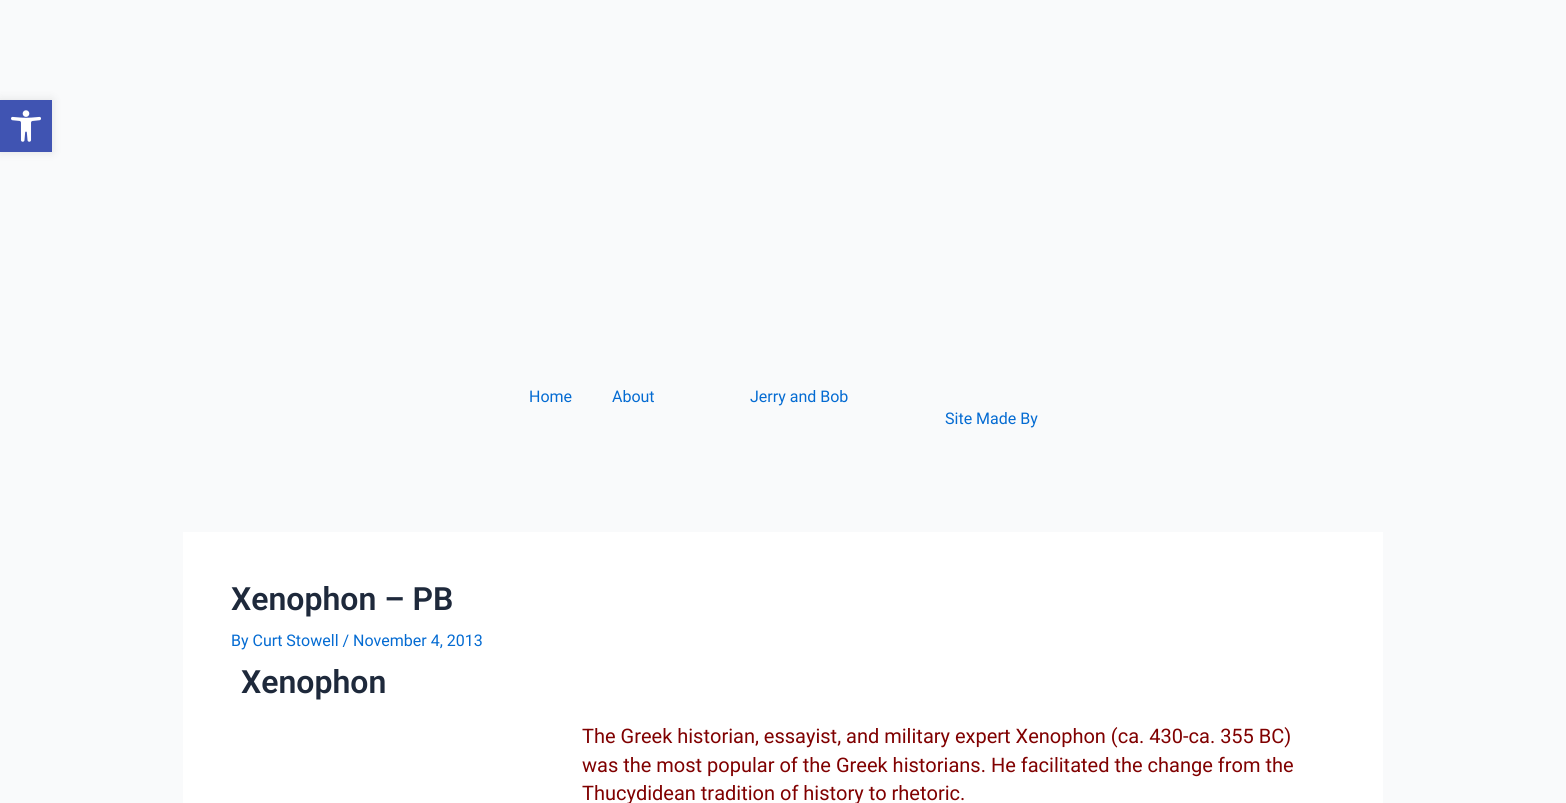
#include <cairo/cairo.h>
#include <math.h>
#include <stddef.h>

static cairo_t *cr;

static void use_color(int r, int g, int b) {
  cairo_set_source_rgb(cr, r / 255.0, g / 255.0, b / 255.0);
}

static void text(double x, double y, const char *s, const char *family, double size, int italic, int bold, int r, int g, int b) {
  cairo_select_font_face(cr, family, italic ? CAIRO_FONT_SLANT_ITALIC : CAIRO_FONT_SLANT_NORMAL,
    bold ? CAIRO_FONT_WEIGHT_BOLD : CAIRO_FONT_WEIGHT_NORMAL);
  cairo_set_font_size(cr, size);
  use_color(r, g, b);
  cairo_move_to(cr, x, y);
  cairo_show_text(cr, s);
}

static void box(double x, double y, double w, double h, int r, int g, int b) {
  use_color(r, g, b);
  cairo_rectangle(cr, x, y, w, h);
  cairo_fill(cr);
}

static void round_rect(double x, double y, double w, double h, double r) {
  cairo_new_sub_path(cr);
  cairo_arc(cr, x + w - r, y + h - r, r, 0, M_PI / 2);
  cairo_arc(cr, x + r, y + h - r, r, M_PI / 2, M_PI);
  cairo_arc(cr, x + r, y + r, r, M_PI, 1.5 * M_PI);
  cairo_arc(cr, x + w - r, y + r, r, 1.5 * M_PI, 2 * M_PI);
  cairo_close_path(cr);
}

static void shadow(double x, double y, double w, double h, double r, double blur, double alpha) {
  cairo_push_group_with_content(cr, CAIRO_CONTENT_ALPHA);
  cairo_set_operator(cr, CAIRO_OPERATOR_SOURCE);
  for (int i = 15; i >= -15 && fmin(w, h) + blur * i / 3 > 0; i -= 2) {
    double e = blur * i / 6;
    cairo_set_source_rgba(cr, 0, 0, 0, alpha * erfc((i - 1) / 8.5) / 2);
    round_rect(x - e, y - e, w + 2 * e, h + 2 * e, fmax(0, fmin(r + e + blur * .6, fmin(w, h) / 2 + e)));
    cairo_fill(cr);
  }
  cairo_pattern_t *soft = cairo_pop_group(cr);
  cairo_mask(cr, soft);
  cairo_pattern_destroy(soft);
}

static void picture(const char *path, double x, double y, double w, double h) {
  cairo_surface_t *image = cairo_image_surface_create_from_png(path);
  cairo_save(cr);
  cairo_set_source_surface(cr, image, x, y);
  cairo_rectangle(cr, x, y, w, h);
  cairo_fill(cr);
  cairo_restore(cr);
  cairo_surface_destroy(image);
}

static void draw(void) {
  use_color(249, 250, 251);
  cairo_paint(cr);
  use_color(0, 0, 0);
  shadow(0, 100, 52, 52, 0, 5, 0.1);
  box(0, 100, 52, 52, 64, 84, 178);
  picture("img_01.png", 11, 110, 30, 32);
  box(183, 532, 1200, 271, 255, 255, 255);
  text(529, 402, "Home", "Roboto", 16, 0, 0, 4, 107, 210);
  text(612, 402, "About", "Roboto", 16, 0, 0, 4, 107, 210);
  text(750, 402, "Jerry and Bob", "Roboto", 16, 0, 0, 4, 107, 210);
  text(945, 424, "Site Made By", "Roboto", 16, 0, 0, 4, 107, 210);
  text(231, 610, "Xenophon – PB", "Roboto SemiBold", 32, 0, 0, 30, 41, 59);
  text(231, 646, "By Curt Stowell / November 4, 2013", "Roboto", 16, 0, 0, 4, 107, 210);
  text(241, 693, "Xenophon", "Roboto SemiBold", 32, 0, 0, 30, 41, 59);
  text(582, 743, "The Greek historian, essayist, and military expert Xenophon (ca. 430-ca. 355 BC)", "Roboto", 20, 0, 0, 128, 0, 0);
  text(582, 772, "was the most popular of the Greek historians. He facilitated the change from the", "Roboto", 20, 0, 0, 128, 0, 0);
  text(582, 800, "Thucydidean tradition of history to rhetoric.", "Roboto", 20, 0, 0, 128, 0, 0);
}

int main(void) {
  cairo_surface_t *surface = cairo_image_surface_create(CAIRO_FORMAT_RGB24, 1566, 803);
  cr = cairo_create(surface);
  cairo_font_options_t *options = cairo_font_options_create();
  cairo_font_options_set_hint_metrics(options, CAIRO_HINT_METRICS_OFF);
  cairo_font_options_set_hint_style(options, CAIRO_HINT_STYLE_NONE);
  cairo_set_font_options(cr, options);
  cairo_set_miter_limit(cr, 4);
  draw();
  cairo_surface_write_to_png(surface, "out.png");
  cairo_font_options_destroy(options);
  cairo_destroy(cr);
  cairo_surface_destroy(surface);
  return 0;
}
